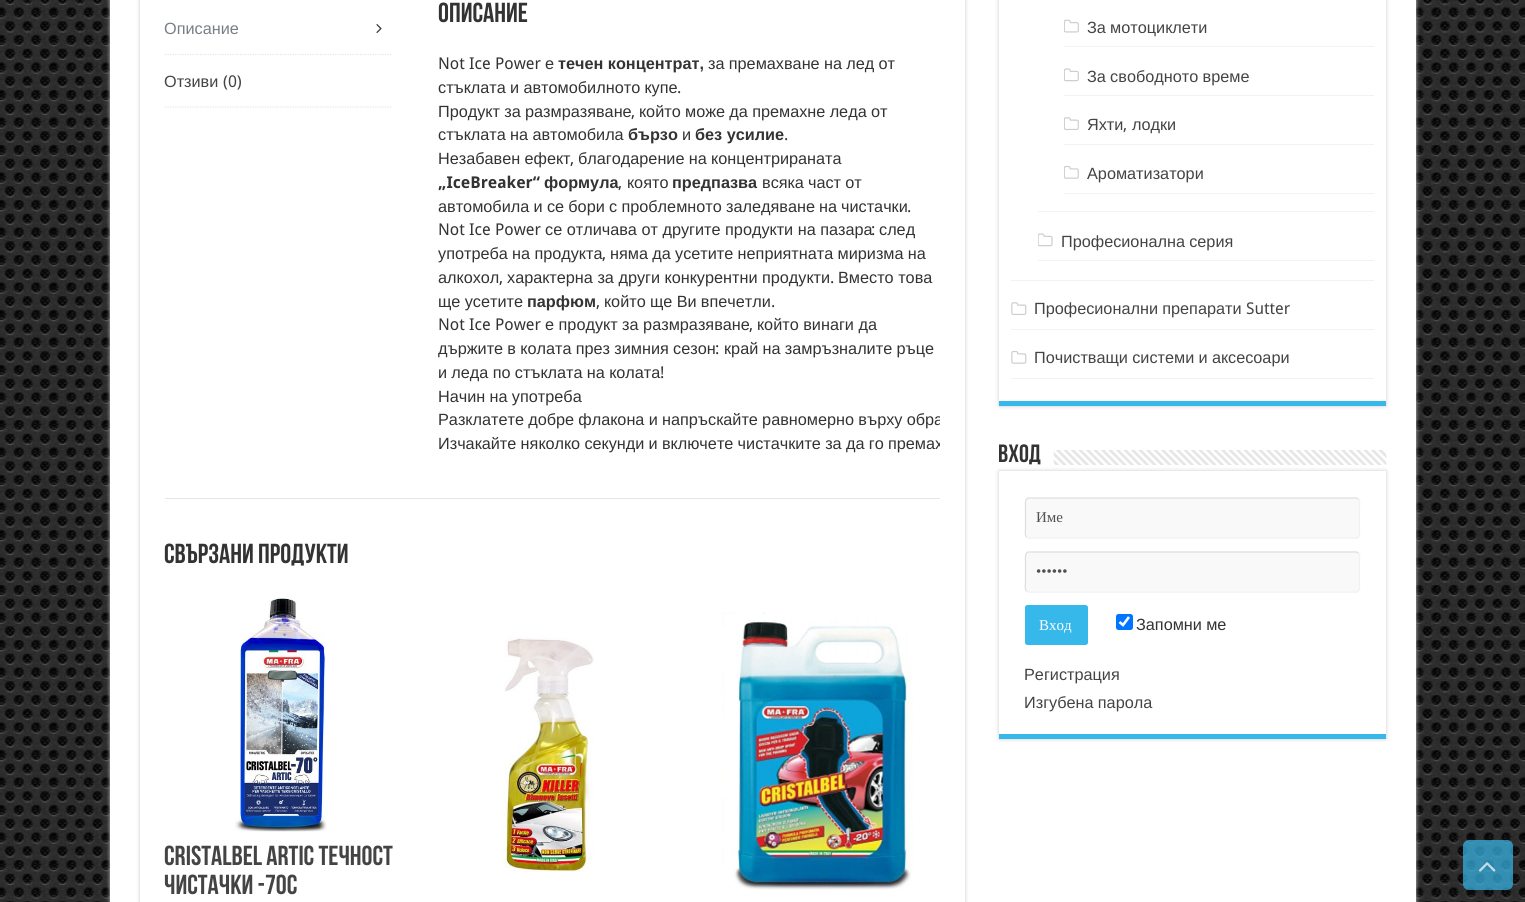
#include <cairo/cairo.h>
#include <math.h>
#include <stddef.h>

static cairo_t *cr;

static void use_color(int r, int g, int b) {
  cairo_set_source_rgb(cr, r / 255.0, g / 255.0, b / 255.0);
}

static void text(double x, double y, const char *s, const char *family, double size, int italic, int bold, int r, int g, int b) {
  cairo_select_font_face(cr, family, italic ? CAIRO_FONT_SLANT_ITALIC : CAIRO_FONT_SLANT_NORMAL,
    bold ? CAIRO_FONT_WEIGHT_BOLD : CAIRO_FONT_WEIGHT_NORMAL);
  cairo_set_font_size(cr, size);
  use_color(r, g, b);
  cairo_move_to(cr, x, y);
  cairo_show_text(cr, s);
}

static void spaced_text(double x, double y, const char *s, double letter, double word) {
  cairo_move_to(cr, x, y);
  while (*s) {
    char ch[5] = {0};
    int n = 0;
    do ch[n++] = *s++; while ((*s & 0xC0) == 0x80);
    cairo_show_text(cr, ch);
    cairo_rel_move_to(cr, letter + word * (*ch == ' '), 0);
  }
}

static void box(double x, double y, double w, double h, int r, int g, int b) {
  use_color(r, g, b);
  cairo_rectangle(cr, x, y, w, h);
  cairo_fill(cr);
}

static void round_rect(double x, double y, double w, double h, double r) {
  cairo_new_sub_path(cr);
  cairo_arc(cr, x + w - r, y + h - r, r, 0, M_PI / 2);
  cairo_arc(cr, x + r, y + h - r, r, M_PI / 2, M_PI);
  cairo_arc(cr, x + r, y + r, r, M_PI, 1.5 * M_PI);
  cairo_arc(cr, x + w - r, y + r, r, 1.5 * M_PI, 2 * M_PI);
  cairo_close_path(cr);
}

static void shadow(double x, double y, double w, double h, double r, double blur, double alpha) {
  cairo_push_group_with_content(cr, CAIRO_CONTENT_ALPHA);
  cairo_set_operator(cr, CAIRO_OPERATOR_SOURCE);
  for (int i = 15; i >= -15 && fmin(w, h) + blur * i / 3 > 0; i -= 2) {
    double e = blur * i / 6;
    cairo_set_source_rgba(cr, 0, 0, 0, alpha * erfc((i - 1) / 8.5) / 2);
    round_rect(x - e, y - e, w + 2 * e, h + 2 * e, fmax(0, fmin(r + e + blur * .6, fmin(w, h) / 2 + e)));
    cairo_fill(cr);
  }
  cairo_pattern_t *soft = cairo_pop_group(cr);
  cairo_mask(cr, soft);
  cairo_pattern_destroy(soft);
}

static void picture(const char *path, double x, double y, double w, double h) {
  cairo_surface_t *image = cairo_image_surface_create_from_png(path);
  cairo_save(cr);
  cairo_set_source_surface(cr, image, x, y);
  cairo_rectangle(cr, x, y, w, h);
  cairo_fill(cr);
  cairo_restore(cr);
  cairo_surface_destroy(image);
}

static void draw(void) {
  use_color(255, 255, 255);
  cairo_paint(cr);
  picture("img_01.png", 0, 0, 1525, 902);
  use_color(202, 202, 202);
  shadow(110, -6, 1306, 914, 0, 2, 1);
  box(110, 0, 1306, 902, 255, 255, 255);
  cairo_save(cr);
  cairo_set_fill_rule(cr, CAIRO_FILL_RULE_EVEN_ODD);
  cairo_new_path(cr);
  cairo_move_to(cr, 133, 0);
  cairo_line_to(cr, 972, 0);
  cairo_line_to(cr, 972, 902);
  cairo_line_to(cr, 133, 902);
  cairo_close_path(cr);
  cairo_move_to(cr, 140, -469);
  cairo_line_to(cr, 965, -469);
  cairo_line_to(cr, 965, 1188);
  cairo_line_to(cr, 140, 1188);
  cairo_close_path(cr);
  cairo_clip(cr);
  use_color(202, 202, 202);
  shadow(140, -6, 825, 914, 0, 2, 1);
  cairo_restore(cr);
  box(165, 498, 775, 1, 230, 230, 230);
  cairo_new_path(cr);
  cairo_move_to(cr, 165, 54.5);
  cairo_line_to(cr, 392.5, 54.5);
  cairo_set_line_width(cr, 1.2);
  cairo_set_dash(cr, (double[]){1.25, 1.25}, 2, 0);
  cairo_stroke(cr);
  picture("img_02.png", 376, 24, 6, 9);
  cairo_new_path(cr);
  cairo_move_to(cr, 165, 107);
  cairo_line_to(cr, 392.5, 107);
  cairo_stroke(cr);
  picture("img_03.png", 235, 596, 92, 236);
  picture("img_04.png", 501, 637, 93, 235);
  picture("img_05.png", 721, 612, 192, 278);
  cairo_save(cr);
  cairo_set_fill_rule(cr, CAIRO_FILL_RULE_EVEN_ODD);
  cairo_new_path(cr);
  cairo_move_to(cr, 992, 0);
  cairo_line_to(cr, 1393, 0);
  cairo_line_to(cr, 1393, 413);
  cairo_line_to(cr, 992, 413);
  cairo_close_path(cr);
  cairo_move_to(cr, 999, -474);
  cairo_line_to(cr, 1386, -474);
  cairo_line_to(cr, 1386, 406);
  cairo_line_to(cr, 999, 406);
  cairo_close_path(cr);
  cairo_clip(cr);
  use_color(202, 202, 202);
  shadow(999, -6, 387, 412, 0, 2, 1);
  cairo_restore(cr);
  box(999, 401, 387, 5, 55, 184, 235);
  box(1011, 280, 363, 1, 242, 242, 242);
  box(1038, 211, 336, 1, 242, 242, 242);
  box(1064, 46, 310, 1, 242, 242, 242);
  picture("img_06.png", 1064, 19, 15, 14);
  box(1064, 95, 310, 1, 242, 242, 242);
  picture("img_07.png", 1064, 68, 15, 14);
  box(1064, 144, 310, 1, 242, 242, 242);
  picture("img_08.png", 1064, 117, 15, 13);
  box(1064, 193, 310, 1, 242, 242, 242);
  picture("img_09.png", 1064, 166, 15, 13);
  box(1038, 260, 336, 1, 242, 242, 242);
  picture("img_10.png", 1038, 233, 15, 14);
  box(1011, 329, 363, 1, 242, 242, 242);
  picture("img_11.png", 1011, 302, 16, 13);
  box(1011, 378, 363, 1, 242, 242, 242);
  picture("img_12.png", 1011, 351, 16, 13);
  use_color(202, 202, 202);
  shadow(999, 471, 387, 268, 0, 2, 1);
  picture("img_13.png", 1053, 450, 334, 15);
  box(999, 471, 387, 263, 255, 255, 255);
  box(999, 734, 387, 5, 55, 184, 235);
  use_color(249, 249, 249);
  round_rect(1025, 498, 335, 41, 4);
  cairo_fill(cr);
  cairo_new_path(cr);
  cairo_move_to(cr, 1358.5, 499);
  cairo_curve_to(cr, 1360.5, 501, 1359.5, 505.5, 1359.5, 507);
  cairo_line_to(cr, 1359.5, 529.5);
  cairo_curve_to(cr, 1359.5, 531.5, 1360.5, 538, 1356, 538);
  cairo_line_to(cr, 1028.5, 538);
  cairo_line_to(cr, 1026.5, 537);
  use_color(241, 241, 241);
  cairo_set_dash(cr, NULL, 0, 0);
  cairo_stroke(cr);
  cairo_new_path(cr);
  cairo_move_to(cr, 1026.5, 537);
  cairo_curve_to(cr, 1024.5, 535.5, 1025.5, 531, 1025.5, 529.5);
  cairo_line_to(cr, 1025.5, 507);
  cairo_curve_to(cr, 1025.5, 504.5, 1024.5, 498, 1029, 498);
  cairo_line_to(cr, 1356.5, 498);
  cairo_line_to(cr, 1358.5, 499);
  use_color(221, 221, 221);
  cairo_stroke(cr);
  use_color(249, 249, 249);
  round_rect(1025, 551, 335, 42, 4);
  cairo_fill(cr);
  cairo_new_path(cr);
  cairo_move_to(cr, 1358.5, 553);
  cairo_curve_to(cr, 1360.5, 554.5, 1359.5, 559, 1359.5, 560.5);
  cairo_line_to(cr, 1359.5, 583);
  cairo_curve_to(cr, 1359.5, 585.5, 1360.5, 592, 1356, 592);
  cairo_line_to(cr, 1028.5, 592);
  cairo_line_to(cr, 1026.5, 591);
  use_color(241, 241, 241);
  cairo_stroke(cr);
  cairo_new_path(cr);
  cairo_move_to(cr, 1026.5, 591);
  cairo_curve_to(cr, 1024.5, 589, 1025.5, 584.5, 1025.5, 583);
  cairo_line_to(cr, 1025.5, 560.5);
  cairo_curve_to(cr, 1025.5, 558.5, 1024.5, 552, 1029, 552);
  cairo_line_to(cr, 1356.5, 552);
  cairo_line_to(cr, 1358.5, 553);
  use_color(221, 221, 221);
  cairo_stroke(cr);
  use_color(55, 184, 235);
  round_rect(1025, 605, 63, 40, 2.5);
  cairo_fill(cr);
  use_color(0, 117, 255);
  round_rect(1116, 614, 17, 16, 2.5);
  cairo_fill(cr);
  cairo_new_path(cr);
  cairo_move_to(cr, 1119.5, 622);
  cairo_line_to(cr, 1123, 625);
  cairo_line_to(cr, 1129, 617);
  use_color(255, 255, 255);
  cairo_set_line_width(cr, 2.6);
  cairo_stroke(cr);
  cairo_set_source_rgba(cr, 0.216, 0.722, 0.922, 0.7);
  round_rect(1463, 840, 50, 50, 6);
  cairo_fill(cr);
  picture("img_14.png", 1478, 862, 18, 10);
  text(164, 34, "Описание", "Liberation Sans", 16.25, 0, 0, 120, 126, 135);
  text(164, 87, "Отзиви", "Liberation Sans", 16.25, 0, 0, 68, 68, 68);
  text(223, 87, "(0)", "Droid Sans", 16.25, 0, 0, 68, 68, 68);
  text(438, 22, "Описание", "Bebas Neue", 27.5, 0, 1, 51, 51, 51);
  text(438, 69, "Not Ice Power", "Droid Sans", 16.25, 0, 0, 51, 51, 51);
  text(545, 69, "е", "Liberation Sans", 16.25, 0, 0, 51, 51, 51);
  text(558, 69, "течен концентрат,", "Liberation Sans", 16.25, 0, 1, 51, 51, 51);
  cairo_select_font_face(cr, "Liberation Sans", CAIRO_FONT_SLANT_NORMAL, CAIRO_FONT_WEIGHT_NORMAL);
  spaced_text(708, 69, "за премахване на лед от", 0, -0.25);
  spaced_text(438, 93, "стъклата и автомобилното купе", 0, -0.25);
  text(677, 93, ".", "Droid Sans", 16.25, 0, 0, 51, 51, 51);
  cairo_select_font_face(cr, "Liberation Sans", CAIRO_FONT_SLANT_NORMAL, CAIRO_FONT_WEIGHT_NORMAL);
  spaced_text(438, 117, "Продукт за размразяване", 0, -0.25);
  text(631, 117, ",", "Droid Sans", 16.25, 0, 0, 51, 51, 51);
  cairo_select_font_face(cr, "Liberation Sans", CAIRO_FONT_SLANT_NORMAL, CAIRO_FONT_WEIGHT_NORMAL);
  spaced_text(639, 117, "който може да премахне леда от", 0, -0.25);
  spaced_text(438, 140, "стъклата на автомобила", 0, -0.25);
  text(628, 140, "бързо", "Liberation Sans", 16.25, 0, 1, 51, 51, 51);
  text(682, 140, "и", "Liberation Sans", 16.25, 0, 0, 51, 51, 51);
  text(695, 140, "без усилие", "Liberation Sans", 16.25, 0, 1, 51, 51, 51);
  text(784, 140, ".", "Droid Sans", 16.25, 0, 0, 51, 51, 51);
  cairo_select_font_face(cr, "Liberation Sans", CAIRO_FONT_SLANT_NORMAL, CAIRO_FONT_WEIGHT_NORMAL);
  spaced_text(438, 164, "Незабавен ефект", 0, -0.25);
  text(570, 164, ",", "Droid Sans", 16.25, 0, 0, 51, 51, 51);
  cairo_select_font_face(cr, "Liberation Sans", CAIRO_FONT_SLANT_NORMAL, CAIRO_FONT_WEIGHT_NORMAL);
  spaced_text(578, 164, "благодарение на концентрираната", 0, -0.25);
  text(438, 188, "„IceBreaker“", "Droid Sans", 16.25, 0, 1, 51, 51, 51);
  text(544, 188, "формула", "Liberation Sans", 16.25, 0, 1, 51, 51, 51);
  text(618, 188, ",", "Droid Sans", 16.25, 0, 0, 51, 51, 51);
  text(627, 188, "която", "Liberation Sans", 16.25, 0, 0, 51, 51, 51);
  text(672, 188, "предпазва", "Liberation Sans", 16.25, 0, 1, 51, 51, 51);
  cairo_select_font_face(cr, "Liberation Sans", CAIRO_FONT_SLANT_NORMAL, CAIRO_FONT_WEIGHT_NORMAL);
  spaced_text(762, 188, "всяка част от", 0, -0.25);
  spaced_text(438, 212, "автомобила и се бори с проблемното заледяване", 0, -0.25);
  text(819, 212, "на", "Liberation Sans", 16.25, 0, 0, 51, 51, 51);
  text(841, 212, "чистачки", "Liberation Sans", 16.25, 0, 0, 51, 51, 51);
  text(907, 212, ".", "Droid Sans", 16.25, 0, 0, 51, 51, 51);
  text(438, 235, "Not Ice Power", "Droid Sans", 16.25, 0, 0, 51, 51, 51);
  text(545, 235, "се отличава от другите продукти на пазара", "Liberation Sans", 16.25, 0, 0, 51, 51, 51);
  text(871, 235, ":", "Droid Sans", 16.25, 0, 0, 51, 51, 51);
  text(879, 235, "след", "Liberation Sans", 16.25, 0, 0, 51, 51, 51);
  spaced_text(438, 259, "употреба на продукта", 0, -0.25);
  text(602, 259, ",", "Droid Sans", 16.25, 0, 0, 51, 51, 51);
  cairo_select_font_face(cr, "Liberation Sans", CAIRO_FONT_SLANT_NORMAL, CAIRO_FONT_WEIGHT_NORMAL);
  spaced_text(610, 259, "няма да усетите неприятната миризма на", 0, -0.25);
  text(438, 283, "алкохол", "Liberation Sans", 16.25, 0, 0, 51, 51, 51);
  text(499, 283, ",", "Droid Sans", 16.25, 0, 0, 51, 51, 51);
  text(507, 283, "характерна за други конкурентни продукти", "Liberation Sans", 16.25, 0, 0, 51, 51, 51);
  text(830, 283, ".", "Droid Sans", 16.25, 0, 0, 51, 51, 51);
  text(838, 283, "Вместо това", "Liberation Sans", 16.25, 0, 0, 51, 51, 51);
  spaced_text(438, 307, "ще усетите", 0, -0.25);
  text(527, 307, "парфюм", "Liberation Sans", 16.25, 0, 1, 51, 51, 51);
  text(596, 307, ",", "Droid Sans", 16.25, 0, 0, 51, 51, 51);
  cairo_select_font_face(cr, "Liberation Sans", CAIRO_FONT_SLANT_NORMAL, CAIRO_FONT_WEIGHT_NORMAL);
  spaced_text(604, 307, "който ще Ви впечетли", 0, -0.25);
  text(771, 307, ".", "Droid Sans", 16.25, 0, 0, 51, 51, 51);
  text(438, 330, "Not Ice Power", "Droid Sans", 16.25, 0, 0, 51, 51, 51);
  text(545, 330, "е продукт за размразяване", "Liberation Sans", 16.25, 0, 0, 51, 51, 51);
  text(749, 330, ",", "Droid Sans", 16.25, 0, 0, 51, 51, 51);
  text(757, 330, "който винаги да", "Liberation Sans", 16.25, 0, 0, 51, 51, 51);
  spaced_text(438, 354, "държите в колата през зимния сезон", 0, -0.25);
  text(715, 354, ":", "Droid Sans", 16.25, 0, 0, 51, 51, 51);
  cairo_select_font_face(cr, "Liberation Sans", CAIRO_FONT_SLANT_NORMAL, CAIRO_FONT_WEIGHT_NORMAL);
  spaced_text(724, 354, "край на замръзналите ръце", 0, -0.25);
  spaced_text(438, 378, "и леда по стъклата на колата", 0, -0.25);
  text(660, 378, "!", "Droid Sans", 16.25, 0, 0, 51, 51, 51);
  cairo_select_font_face(cr, "Liberation Sans", CAIRO_FONT_SLANT_NORMAL, CAIRO_FONT_WEIGHT_NORMAL);
  spaced_text(438, 402, "Начин на употреба", 0, -0.25);
  cairo_save(cr);
  cairo_rectangle(cr, 165, 0, 775, 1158);
  cairo_clip(cr);
  spaced_text(438, 425, "Разклатете добре флакона и напръскайте равномерно върху обра", 0, -0.25);
  spaced_text(438, 449, "Изчакайте няколко секунди и включете чистачките за да го премах", 0, -0.25);
  cairo_restore(cr);
  text(164, 563, "Свързани продукти", "Bebas Neue", 27.5, 0, 1, 51, 51, 51);
  text(164, 865, "CRISTALBEL ARTIC ТЕЧНОСТ", "Bebas Neue", 27.5, 0, 1, 68, 68, 68);
  text(164, 894, "ЧИСТАЧКИ -70С", "Bebas Neue", 27.5, 0, 1, 68, 68, 68);
  cairo_select_font_face(cr, "Liberation Sans", CAIRO_FONT_SLANT_NORMAL, CAIRO_FONT_WEIGHT_NORMAL);
  cairo_set_font_size(cr, 16.25);
  spaced_text(1087, 33, "За мотоциклети", 0, -0.25);
  spaced_text(1087, 82, "За свободното време", 0, -0.25);
  text(1087, 130, "Яхти", "Liberation Sans", 16.25, 0, 0, 68, 68, 68);
  text(1123, 130, ",", "Droid Sans", 16.25, 0, 0, 68, 68, 68);
  text(1132, 130, "лодки", "Liberation Sans", 16.25, 0, 0, 68, 68, 68);
  text(1087, 179, "Ароматизатори", "Liberation Sans", 16.25, 0, 0, 68, 68, 68);
  spaced_text(1061, 247, "Професионална серия", 0, -0.25);
  spaced_text(1034, 314, "Професионални препарати", 0, -0.25);
  text(1246, 314, "Sutter", "Droid Sans", 16.25, 0, 0, 68, 68, 68);
  cairo_select_font_face(cr, "Liberation Sans", CAIRO_FONT_SLANT_NORMAL, CAIRO_FONT_WEIGHT_NORMAL);
  spaced_text(1034, 363, "Почистващи системи и аксесоари", 0, -0.25);
  text(998, 462, "Вход", "Bebas Neue", 25, 0, 1, 51, 51, 51);
  text(1036, 522, "Име", "Liberation Serif", 15, 0, 0, 81, 81, 81);
  text(1036, 576, "••••••", "Liberation Serif", 15, 0, 0, 81, 81, 81);
  text(1039, 630, "Вход", "Liberation Serif", 15, 0, 0, 255, 255, 255);
  cairo_select_font_face(cr, "Liberation Sans", CAIRO_FONT_SLANT_NORMAL, CAIRO_FONT_WEIGHT_NORMAL);
  cairo_set_font_size(cr, 16.25);
  use_color(51, 51, 51);
  spaced_text(1136, 630, "Запомни ме", 0, -0.25);
  text(1024, 680, "Регистрация", "Liberation Sans", 16.25, 0, 0, 68, 68, 68);
  spaced_text(1024, 708, "Изгубена парола", 0, -0.25);
}

int main(void) {
  cairo_surface_t *surface = cairo_image_surface_create(CAIRO_FORMAT_RGB24, 1525, 902);
  cr = cairo_create(surface);
  cairo_font_options_t *options = cairo_font_options_create();
  cairo_font_options_set_hint_metrics(options, CAIRO_HINT_METRICS_OFF);
  cairo_font_options_set_hint_style(options, CAIRO_HINT_STYLE_NONE);
  cairo_set_font_options(cr, options);
  cairo_set_miter_limit(cr, 4);
  draw();
  cairo_surface_write_to_png(surface, "out.png");
  cairo_font_options_destroy(options);
  cairo_destroy(cr);
  cairo_surface_destroy(surface);
  return 0;
}
